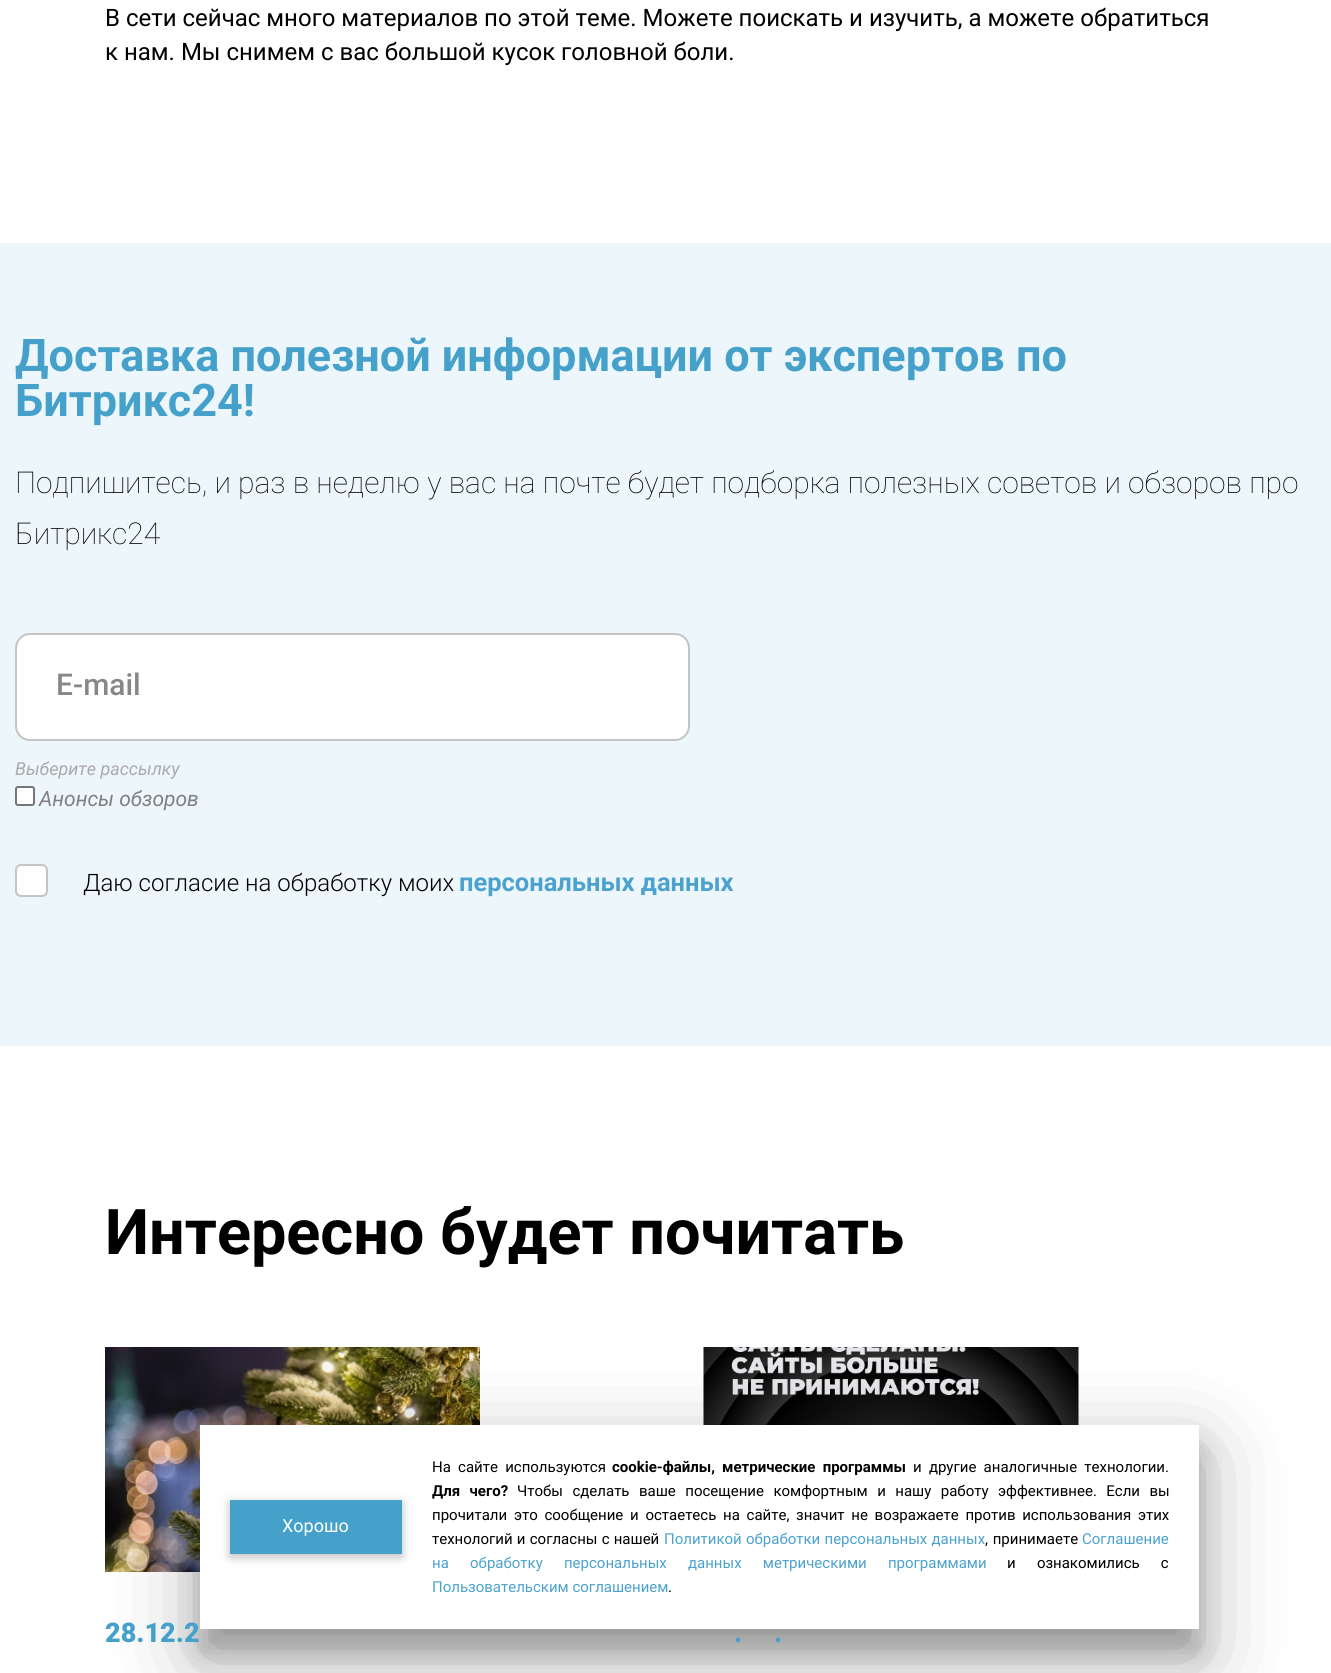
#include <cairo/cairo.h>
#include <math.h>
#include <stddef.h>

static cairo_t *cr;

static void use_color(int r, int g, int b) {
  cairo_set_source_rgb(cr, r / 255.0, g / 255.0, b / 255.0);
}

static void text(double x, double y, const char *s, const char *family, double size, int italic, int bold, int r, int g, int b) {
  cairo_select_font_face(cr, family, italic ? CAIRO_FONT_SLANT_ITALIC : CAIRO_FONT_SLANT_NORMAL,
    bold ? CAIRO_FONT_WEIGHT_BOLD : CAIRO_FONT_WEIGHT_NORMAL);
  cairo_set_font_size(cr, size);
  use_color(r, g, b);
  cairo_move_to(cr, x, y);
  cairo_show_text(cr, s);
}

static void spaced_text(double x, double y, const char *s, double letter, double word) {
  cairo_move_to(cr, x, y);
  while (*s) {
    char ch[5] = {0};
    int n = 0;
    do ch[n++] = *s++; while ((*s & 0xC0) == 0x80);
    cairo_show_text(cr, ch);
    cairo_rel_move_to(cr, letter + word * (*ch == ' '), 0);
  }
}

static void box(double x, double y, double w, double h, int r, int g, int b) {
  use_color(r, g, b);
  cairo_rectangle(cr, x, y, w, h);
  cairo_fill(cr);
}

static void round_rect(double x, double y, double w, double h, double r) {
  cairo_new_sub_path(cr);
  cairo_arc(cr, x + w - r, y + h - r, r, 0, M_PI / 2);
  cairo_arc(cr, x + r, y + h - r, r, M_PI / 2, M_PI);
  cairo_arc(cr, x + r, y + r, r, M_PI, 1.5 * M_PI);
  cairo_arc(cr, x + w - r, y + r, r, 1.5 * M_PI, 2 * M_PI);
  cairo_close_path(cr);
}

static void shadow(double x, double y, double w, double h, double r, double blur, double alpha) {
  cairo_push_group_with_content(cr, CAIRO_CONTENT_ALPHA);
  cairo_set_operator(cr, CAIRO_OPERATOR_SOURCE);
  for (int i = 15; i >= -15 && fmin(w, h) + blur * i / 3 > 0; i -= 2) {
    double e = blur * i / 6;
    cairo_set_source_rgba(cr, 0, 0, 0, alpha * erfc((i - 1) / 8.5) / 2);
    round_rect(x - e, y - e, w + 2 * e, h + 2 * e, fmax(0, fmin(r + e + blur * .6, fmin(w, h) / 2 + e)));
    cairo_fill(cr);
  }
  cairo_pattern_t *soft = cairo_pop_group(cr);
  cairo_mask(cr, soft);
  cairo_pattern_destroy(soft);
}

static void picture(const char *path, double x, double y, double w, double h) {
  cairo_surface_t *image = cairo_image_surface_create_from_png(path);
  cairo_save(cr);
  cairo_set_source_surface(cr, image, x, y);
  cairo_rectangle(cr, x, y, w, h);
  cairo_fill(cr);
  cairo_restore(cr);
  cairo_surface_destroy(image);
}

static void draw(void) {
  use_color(255, 255, 255);
  cairo_paint(cr);
  box(0, 243, 1331, 803, 237, 246, 251);
  use_color(255, 255, 255);
  round_rect(16, 634, 673, 106, 14);
  cairo_fill_preserve(cr);
  use_color(196, 196, 196);
  cairo_stroke(cr);
  use_color(255, 255, 255);
  round_rect(16, 787, 18, 18, 2);
  cairo_fill_preserve(cr);
  use_color(118, 118, 118);
  cairo_stroke(cr);
  use_color(255, 255, 255);
  round_rect(16, 865, 31, 31, 5);
  cairo_fill_preserve(cr);
  use_color(196, 196, 196);
  cairo_stroke(cr);
  picture("img_01.png", 105, 1347, 375, 225);
  picture("img_02.png", 703, 1347, 376, 78);
  use_color(0, 0, 0);
  shadow(200, 1454, 999, 204, 0, 45, 0.3);
  shadow(200, 1448, 999, 204, 0, 15, 0.22);
  box(200, 1425, 999, 204, 255, 255, 255);
  use_color(0, 0, 0);
  shadow(230, 1503, 172, 54, 0, 7.5, 0.12);
  shadow(230, 1503, 172, 54, 0, 4, 0.16);
  box(230, 1500, 172, 54, 69, 161, 202);
  text(105, 26, "В сети сейчас много материалов по этой теме. Можете поискать и изучить, а можете обратиться", "Roboto", 24, 0, 0, 0, 0, 0);
  text(105, 60, "к нам. Мы снимем с вас большой кусок головной боли.", "Roboto", 24, 0, 0, 0, 0, 0);
  text(15, 371, "Доставка полезной информации от экспертов по", "Roboto", 45, 0, 1, 69, 161, 202);
  text(15, 416, "Битрикс24!", "Roboto", 45, 0, 1, 69, 161, 202);
  text(15, 493, "Подпишитесь, и раз в неделю у вас на почте будет подборка полезных советов и обзоров про", "Roboto Thin", 30, 0, 0, 0, 0, 0);
  text(15, 544, "Битрикс24", "Roboto Thin", 30, 0, 0, 0, 0, 0);
  text(56, 695, "E-mail", "Roboto Medium", 30, 0, 0, 135, 135, 135);
  text(15, 775, "Выберите рассылку", "Roboto", 18, 1, 0, 170, 170, 170);
  text(39, 806, "Анонсы обзоров", "Roboto", 21, 1, 0, 128, 128, 128);
  text(83, 891, "Даю согласие на обработку моих", "Roboto Light", 24, 0, 0, 0, 0, 0);
  text(459, 891, "персональных данных", "Roboto", 25.5, 0, 1, 75, 162, 207);
  text(105, 1254, "Интересно будет почитать", "Roboto", 63, 0, 1, 0, 0, 0);
  text(105, 1642, "28.12.2", "Roboto Black", 27, 0, 0, 69, 161, 202);
  text(734, 1642, ".", "Roboto Black", 27, 0, 0, 69, 161, 202);
  text(774, 1642, ".", "Roboto Black", 27, 0, 0, 69, 161, 202);
  text(282, 1532, "Хорошо", "Roboto", 18, 0, 0, 255, 255, 255);
  cairo_set_font_size(cr, 15);
  use_color(0, 0, 0);
  spaced_text(432, 1472, "На сайте используются", 0, 3.5);
  cairo_select_font_face(cr, "Roboto", CAIRO_FONT_SLANT_NORMAL, CAIRO_FONT_WEIGHT_BOLD);
  spaced_text(612, 1472, "cookie-файлы, метрические программы", 0, 3.5);
  cairo_select_font_face(cr, "Roboto", CAIRO_FONT_SLANT_NORMAL, CAIRO_FONT_WEIGHT_NORMAL);
  spaced_text(913, 1472, "и другие аналогичные технологии.", 0, 3.5);
  cairo_select_font_face(cr, "Roboto", CAIRO_FONT_SLANT_NORMAL, CAIRO_FONT_WEIGHT_BOLD);
  spaced_text(432, 1496, "Для чего?", 0, 5.75);
  cairo_select_font_face(cr, "Roboto", CAIRO_FONT_SLANT_NORMAL, CAIRO_FONT_WEIGHT_NORMAL);
  spaced_text(517, 1496, "Чтобы сделать ваше посещение комфортным и нашу работу эффективнее. Если вы", 0, 5.75);
  spaced_text(432, 1520, "прочитали это сообщение и остаетесь на сайте, значит не возражаете против использования этих", 0, 3);
  spaced_text(432, 1544, "технологий и согласны с нашей", 0, 0.5);
  use_color(75, 162, 207);
  spaced_text(664, 1544, "Политикой обработки персональных данных", 0, 0.5);
  use_color(0, 0, 0);
  spaced_text(985, 1544, ", принимаете", 0, 1);
  text(1082, 1544, "Соглашение", "Roboto", 15, 0, 0, 75, 162, 207);
  spaced_text(432, 1568, "на обработку персональных данных метрическими программами", 0, 17.5);
  use_color(0, 0, 0);
  spaced_text(1007, 1568, "и ознакомились с", 0, 17.5);
  text(432, 1592, "Пользовательским соглашением", "Roboto", 15, 0, 0, 75, 162, 207);
  text(668, 1592, ".", "Roboto", 15, 0, 0, 0, 0, 0);
}

int main(void) {
  cairo_surface_t *surface = cairo_image_surface_create(CAIRO_FORMAT_RGB24, 1331, 1673);
  cr = cairo_create(surface);
  cairo_font_options_t *options = cairo_font_options_create();
  cairo_font_options_set_hint_metrics(options, CAIRO_HINT_METRICS_OFF);
  cairo_font_options_set_hint_style(options, CAIRO_HINT_STYLE_NONE);
  cairo_set_font_options(cr, options);
  cairo_set_miter_limit(cr, 4);
  draw();
  cairo_surface_write_to_png(surface, "out.png");
  cairo_font_options_destroy(options);
  cairo_destroy(cr);
  cairo_surface_destroy(surface);
  return 0;
}
